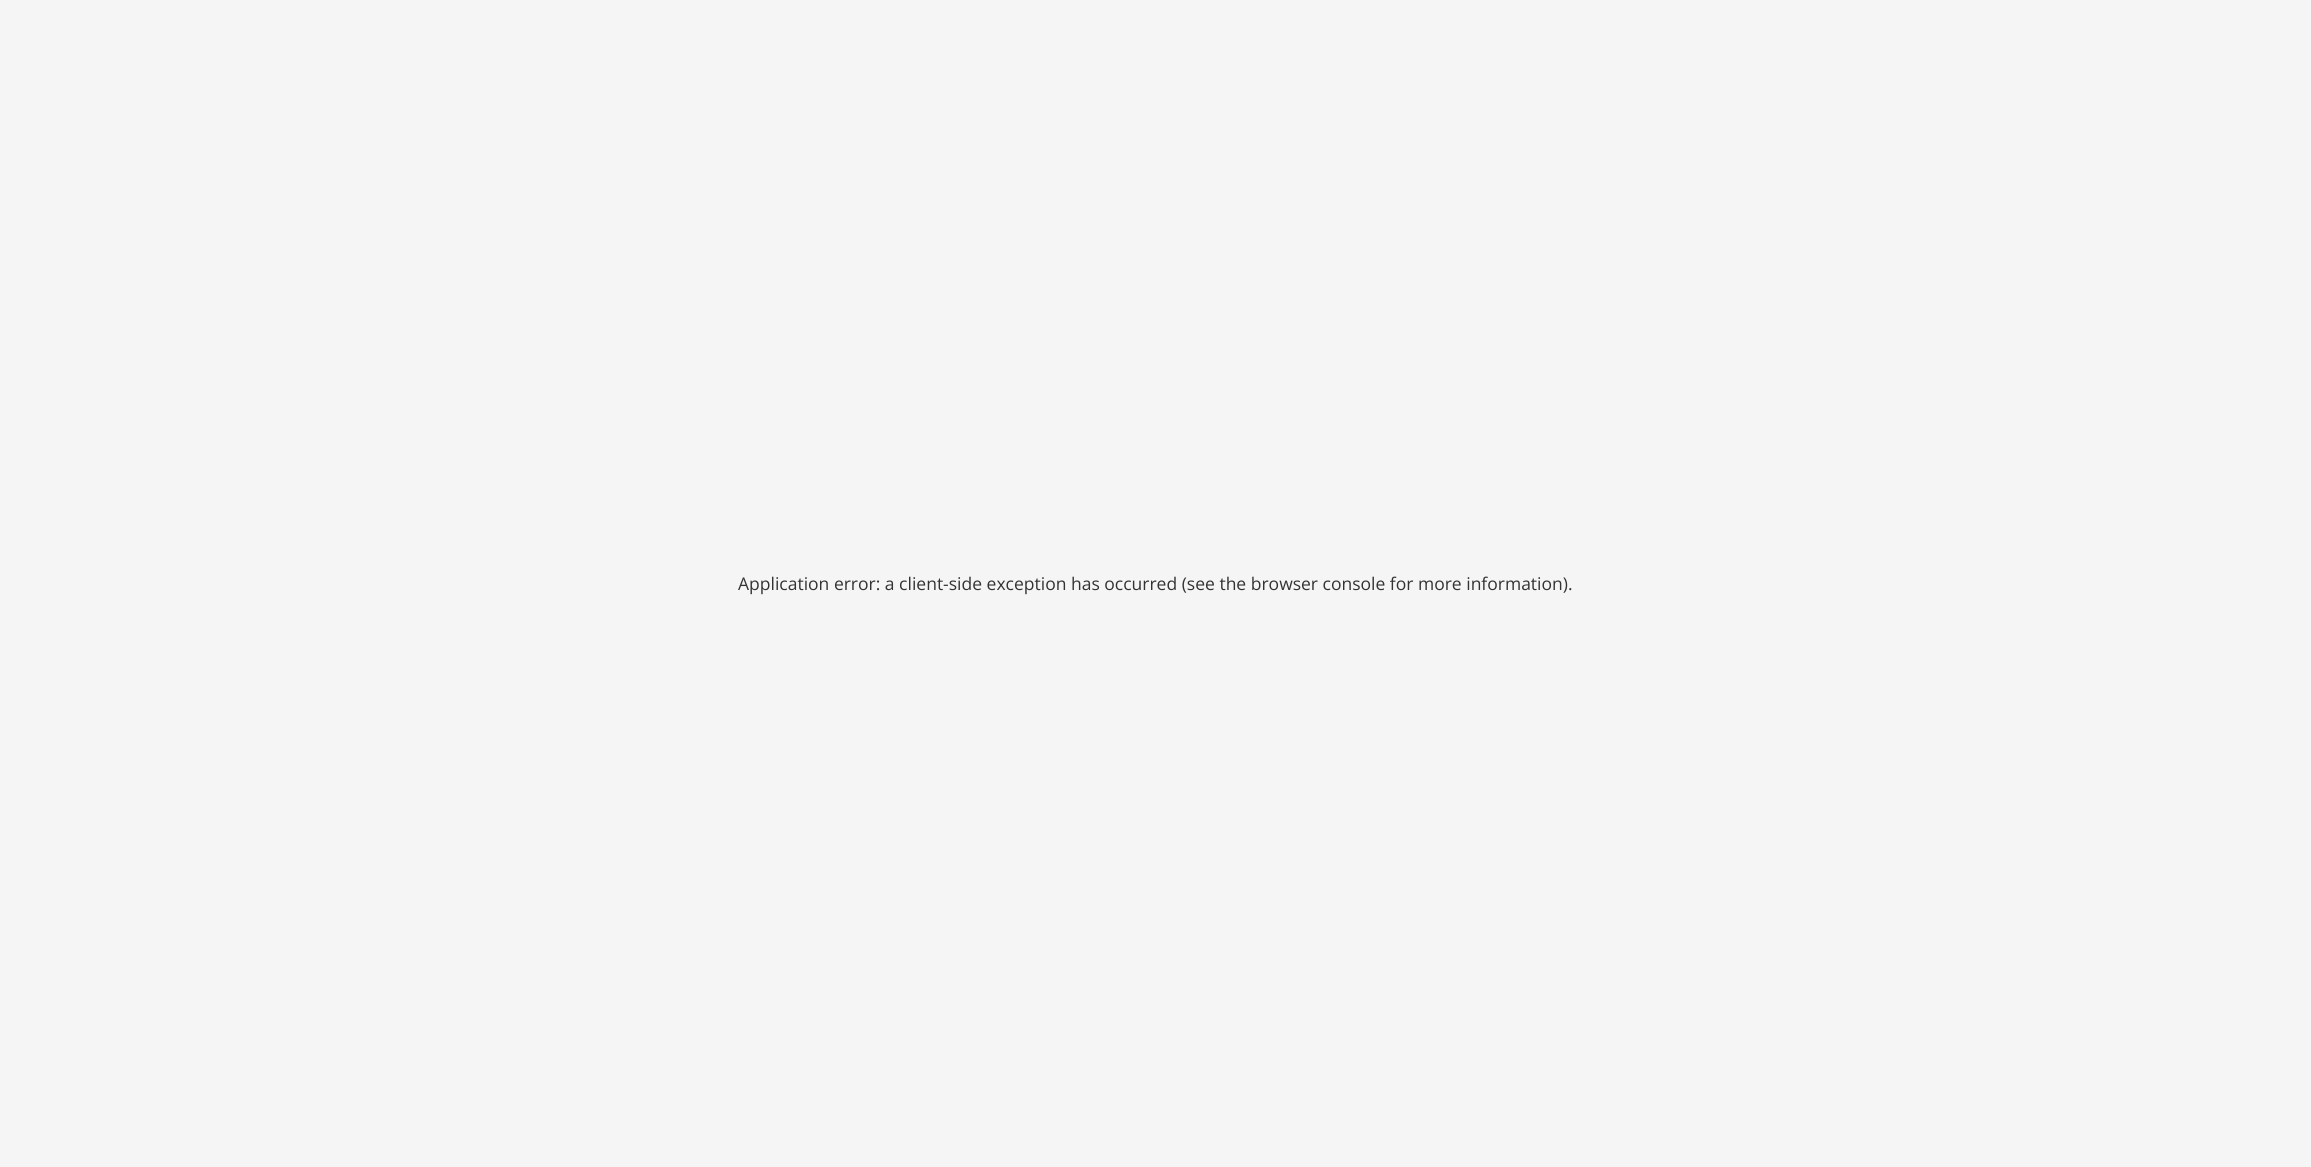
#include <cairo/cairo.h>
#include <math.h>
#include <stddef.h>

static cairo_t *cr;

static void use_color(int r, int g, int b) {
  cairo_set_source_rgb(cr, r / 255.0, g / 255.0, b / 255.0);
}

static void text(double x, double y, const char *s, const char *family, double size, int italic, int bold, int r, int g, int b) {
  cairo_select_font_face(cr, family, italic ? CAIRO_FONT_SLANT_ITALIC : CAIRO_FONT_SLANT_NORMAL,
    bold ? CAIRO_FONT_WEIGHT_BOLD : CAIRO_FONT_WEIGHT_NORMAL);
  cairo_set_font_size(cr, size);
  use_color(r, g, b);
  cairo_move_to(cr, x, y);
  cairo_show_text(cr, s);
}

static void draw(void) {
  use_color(245, 245, 245);
  cairo_paint(cr);
  text(738, 590, "Application error: a client-side exception has occurred (see the browser console for more information).", "Open Sans", 17.5, 0, 0, 51, 51, 51);
}

int main(void) {
  cairo_surface_t *surface = cairo_image_surface_create(CAIRO_FORMAT_RGB24, 2311, 1167);
  cr = cairo_create(surface);
  cairo_font_options_t *options = cairo_font_options_create();
  cairo_font_options_set_hint_metrics(options, CAIRO_HINT_METRICS_OFF);
  cairo_font_options_set_hint_style(options, CAIRO_HINT_STYLE_NONE);
  cairo_set_font_options(cr, options);
  cairo_set_miter_limit(cr, 4);
  draw();
  cairo_surface_write_to_png(surface, "out.png");
  cairo_font_options_destroy(options);
  cairo_destroy(cr);
  cairo_surface_destroy(surface);
  return 0;
}
